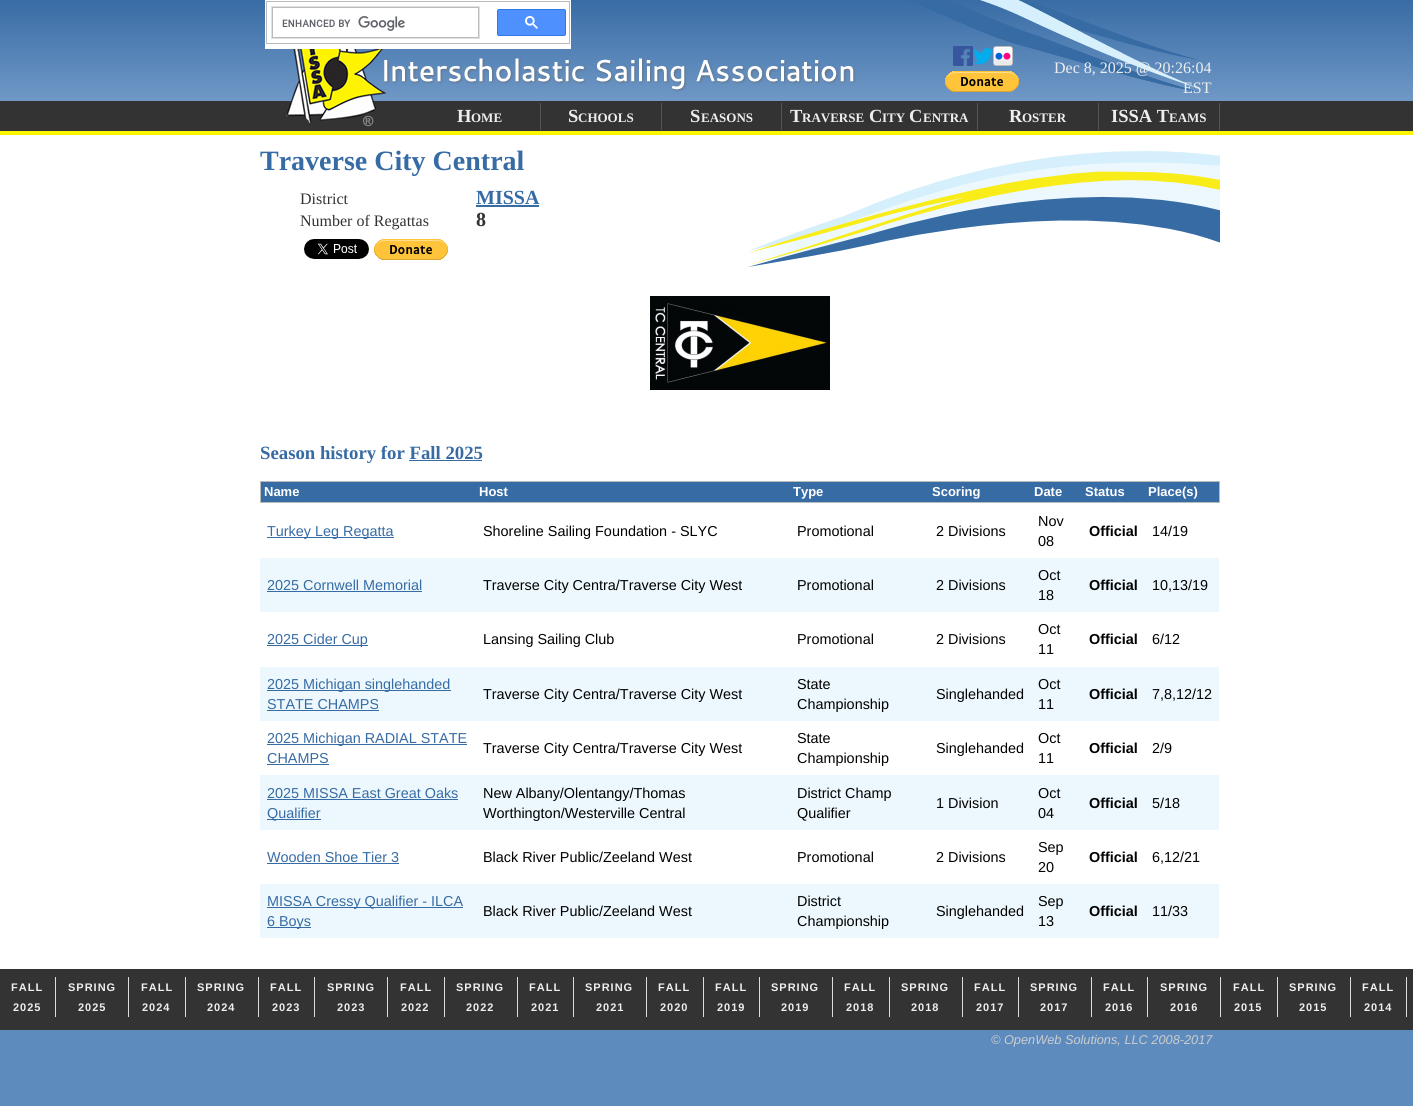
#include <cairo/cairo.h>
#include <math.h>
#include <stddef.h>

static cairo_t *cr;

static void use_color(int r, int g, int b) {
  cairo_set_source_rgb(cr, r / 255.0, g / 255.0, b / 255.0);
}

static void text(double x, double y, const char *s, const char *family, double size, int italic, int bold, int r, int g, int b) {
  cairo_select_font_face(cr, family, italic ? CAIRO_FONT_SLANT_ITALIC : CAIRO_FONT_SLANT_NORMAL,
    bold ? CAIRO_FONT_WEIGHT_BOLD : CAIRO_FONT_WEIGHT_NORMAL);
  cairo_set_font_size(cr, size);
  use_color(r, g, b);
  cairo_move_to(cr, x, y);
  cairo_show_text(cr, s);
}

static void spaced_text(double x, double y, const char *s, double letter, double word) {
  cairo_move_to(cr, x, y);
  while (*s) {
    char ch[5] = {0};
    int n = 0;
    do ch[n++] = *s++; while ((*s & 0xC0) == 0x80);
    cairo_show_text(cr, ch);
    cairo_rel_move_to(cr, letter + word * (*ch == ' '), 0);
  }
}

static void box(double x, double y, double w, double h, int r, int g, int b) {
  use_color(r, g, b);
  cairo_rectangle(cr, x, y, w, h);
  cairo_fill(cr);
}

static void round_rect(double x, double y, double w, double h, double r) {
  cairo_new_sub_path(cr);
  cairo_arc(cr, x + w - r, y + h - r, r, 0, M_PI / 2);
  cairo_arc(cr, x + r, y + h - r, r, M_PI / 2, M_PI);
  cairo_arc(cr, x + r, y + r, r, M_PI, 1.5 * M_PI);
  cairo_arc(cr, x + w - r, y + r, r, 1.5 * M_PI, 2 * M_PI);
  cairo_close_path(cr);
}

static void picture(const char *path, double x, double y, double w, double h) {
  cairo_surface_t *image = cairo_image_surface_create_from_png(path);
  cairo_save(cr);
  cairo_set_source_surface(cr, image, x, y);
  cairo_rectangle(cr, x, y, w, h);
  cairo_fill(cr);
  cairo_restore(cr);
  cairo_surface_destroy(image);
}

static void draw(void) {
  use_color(94, 139, 189);
  cairo_paint(cr);
  picture("img_01.png", 0, 0, 1413, 135);
  picture("img_02.png", 265, 0, 950, 135);
  box(265, 0, 306, 49, 255, 255, 255);
  box(266, 1, 304, 1, 187, 187, 187);
  box(569, 1, 1, 43, 187, 187, 187);
  box(266, 43, 304, 1, 187, 187, 187);
  box(266, 1, 1, 43, 187, 187, 187);
  cairo_rectangle(cr, 271.5, 6.5, 208, 32);
  use_color(223, 225, 229);
  cairo_set_line_width(cr, 1);
  cairo_stroke(cr);
  box(272, 7, 207, 1, 187, 187, 187);
  box(478, 7, 1, 31, 187, 187, 187);
  box(272, 37, 207, 1, 187, 187, 187);
  box(272, 7, 1, 31, 187, 187, 187);
  picture("img_03.png", 282, 16, 123, 15);
  use_color(77, 144, 254);
  round_rect(497.5, 9.5, 68, 26, 1.5);
  cairo_fill_preserve(cr);
  use_color(48, 121, 237);
  cairo_stroke(cr);
  picture("img_04.png", 525, 16, 13, 13);
  picture("img_05.png", 953, 46, 20, 20);
  picture("img_06.png", 973, 47, 20, 18);
  picture("img_07.png", 993, 46, 20, 20);
  picture("img_08.png", 945, 71, 74, 21);
  box(540, 103, 1, 27, 85, 85, 85);
  box(661, 103, 1, 27, 85, 85, 85);
  box(781, 103, 1, 27, 85, 85, 85);
  box(977, 103, 1, 27, 85, 85, 85);
  box(1098, 103, 1, 27, 85, 85, 85);
  box(1219, 103, 1, 27, 85, 85, 85);
  box(0, 135, 1413, 834, 255, 255, 255);
  picture("img_09.png", 748, 151, 472, 116);
  box(476, 205, 63, 2, 55, 107, 164);
  picture("img_10.png", 304, 239, 65, 20);
  picture("img_11.png", 374, 239, 74, 21);
  picture("img_12.png", 650, 296, 180, 94);
  box(409, 460, 73, 1, 55, 107, 164);
  box(261, 482, 958, 20, 55, 107, 164);
  box(260, 481, 960, 1, 187, 187, 187);
  box(1219, 481, 1, 22, 187, 187, 187);
  box(260, 502, 960, 1, 187, 187, 187);
  box(260, 481, 1, 22, 187, 187, 187);
  box(267, 537, 127, 1, 55, 107, 164);
  box(260, 558, 959, 54, 236, 248, 253);
  box(267, 591, 155, 1, 55, 107, 164);
  box(267, 645, 101, 1, 55, 107, 164);
  box(260, 667, 959, 54, 236, 248, 253);
  box(267, 690, 184, 1, 55, 107, 164);
  box(267, 710, 112, 1, 55, 107, 164);
  box(267, 744, 200, 1, 55, 107, 164);
  box(267, 764, 62, 1, 55, 107, 164);
  box(260, 775, 959, 55, 236, 248, 253);
  box(267, 799, 191, 1, 55, 107, 164);
  box(267, 819, 54, 1, 55, 107, 164);
  box(267, 863, 132, 1, 55, 107, 164);
  box(260, 884, 959, 54, 236, 248, 253);
  box(267, 907, 196, 1, 55, 107, 164);
  box(267, 927, 44, 1, 55, 107, 164);
  box(0, 969, 1413, 61, 51, 51, 51);
  box(55, 977, 1, 40, 221, 221, 221);
  box(128, 977, 1, 40, 221, 221, 221);
  box(185, 977, 1, 40, 221, 221, 221);
  box(258, 977, 1, 40, 221, 221, 221);
  box(314, 977, 1, 40, 221, 221, 221);
  box(387, 977, 1, 40, 221, 221, 221);
  box(444, 977, 1, 40, 221, 221, 221);
  box(517, 977, 1, 40, 221, 221, 221);
  box(573, 977, 1, 40, 221, 221, 221);
  box(646, 977, 1, 40, 221, 221, 221);
  box(703, 977, 1, 40, 221, 221, 221);
  box(759, 977, 1, 40, 221, 221, 221);
  box(832, 977, 1, 40, 221, 221, 221);
  box(889, 977, 1, 40, 221, 221, 221);
  box(962, 977, 1, 40, 221, 221, 221);
  box(1018, 977, 1, 40, 221, 221, 221);
  box(1091, 977, 1, 40, 221, 221, 221);
  box(1147, 977, 1, 40, 221, 221, 221);
  box(1220, 977, 1, 40, 221, 221, 221);
  box(1277, 977, 1, 40, 221, 221, 221);
  box(1350, 977, 1, 40, 221, 221, 221);
  box(1406, 977, 1, 40, 221, 221, 221);
  text(1054, 73, "Dec 8, 2025 @ 20:26:04", "Liberation Serif", 16, 0, 0, 238, 238, 238);
  text(1183, 93, "EST", "Liberation Serif", 16, 0, 0, 238, 238, 238);
  text(457, 122, "H", "Liberation Serif", 18.5, 0, 1, 238, 238, 238);
  text(471, 122, "OME", "Liberation Serif", 13, 0, 1, 238, 238, 238);
  text(568, 122, "S", "Liberation Serif", 18.5, 0, 1, 238, 238, 238);
  text(578, 122, "CHOOLS", "Liberation Serif", 13, 0, 1, 238, 238, 238);
  text(690, 122, "S", "Liberation Serif", 18.5, 0, 1, 238, 238, 238);
  text(701, 122, "EASONS", "Liberation Serif", 13, 0, 1, 238, 238, 238);
  text(790, 122, "T", "Liberation Serif", 18.5, 0, 1, 238, 238, 238);
  text(802, 122, "RAVERSE", "Liberation Serif", 13, 0, 1, 238, 238, 238);
  text(869, 122, "C", "Liberation Serif", 18.5, 0, 1, 238, 238, 238);
  text(882, 122, "ITY", "Liberation Serif", 13, 0, 1, 238, 238, 238);
  text(909, 122, "C", "Liberation Serif", 18.5, 0, 1, 238, 238, 238);
  text(923, 122, "ENTRA", "Liberation Serif", 13, 0, 1, 238, 238, 238);
  text(1009, 122, "R", "Liberation Serif", 18.5, 0, 1, 238, 238, 238);
  text(1022, 122, "OSTER", "Liberation Serif", 13, 0, 1, 238, 238, 238);
  text(1111, 122, "ISSA T", "Liberation Serif", 18.5, 0, 1, 238, 238, 238);
  text(1169, 122, "EAMS", "Liberation Serif", 13, 0, 1, 238, 238, 238);
  text(260, 170, "Traverse City Central", "Liberation Serif", 28, 0, 1, 55, 107, 164);
  text(300, 204, "District", "Liberation Serif", 16, 0, 0, 51, 51, 51);
  text(476, 204, "MISSA", "Liberation Serif", 20, 0, 1, 55, 107, 164);
  text(300, 226, "Number of Regattas", "Liberation Serif", 16, 0, 0, 51, 51, 51);
  text(476, 226, "8", "Liberation Serif", 20, 0, 1, 51, 51, 51);
  text(260, 459, "Season history for Fall 2025", "Liberation Serif", 18.75, 0, 1, 55, 107, 164);
  text(264, 496, "Name", "Liberation Sans", 13, 0, 1, 255, 255, 255);
  text(479, 496, "Host", "Liberation Sans", 13, 0, 1, 255, 255, 255);
  text(793, 496, "Type", "Liberation Sans", 13, 0, 1, 255, 255, 255);
  text(932, 496, "Scoring", "Liberation Sans", 13, 0, 1, 255, 255, 255);
  text(1034, 496, "Date", "Liberation Sans", 13, 0, 1, 255, 255, 255);
  text(1085, 496, "Status", "Liberation Sans", 13, 0, 1, 255, 255, 255);
  text(1148, 496, "Place(s)", "Liberation Sans", 13, 0, 1, 255, 255, 255);
  text(267, 536, "Turkey Leg Regatta", "Liberation Sans", 14.4, 0, 0, 55, 107, 164);
  text(483, 536, "Shoreline Sailing Foundation - SLYC", "Liberation Sans", 14.4, 0, 0, 0, 0, 0);
  text(797, 536, "Promotional", "Liberation Sans", 14.4, 0, 0, 0, 0, 0);
  text(936, 536, "2 Divisions", "Liberation Sans", 14.4, 0, 0, 0, 0, 0);
  text(1038, 526, "Nov", "Liberation Sans", 14.4, 0, 0, 0, 0, 0);
  text(1038, 546, "08", "Liberation Sans", 14.4, 0, 0, 0, 0, 0);
  text(1089, 536, "Official", "Liberation Sans", 14.4, 0, 1, 0, 0, 0);
  text(1152, 536, "14/19", "Liberation Sans", 14.4, 0, 0, 0, 0, 0);
  text(267, 590, "2025 Cornwell Memorial", "Liberation Sans", 14.4, 0, 0, 55, 107, 164);
  text(483, 590, "Traverse City Centra/Traverse City West", "Liberation Sans", 14.4, 0, 0, 0, 0, 0);
  text(797, 590, "Promotional", "Liberation Sans", 14.4, 0, 0, 0, 0, 0);
  text(936, 590, "2 Divisions", "Liberation Sans", 14.4, 0, 0, 0, 0, 0);
  text(1038, 580, "Oct", "Liberation Sans", 14.4, 0, 0, 0, 0, 0);
  text(1038, 600, "18", "Liberation Sans", 14.4, 0, 0, 0, 0, 0);
  text(1089, 590, "Official", "Liberation Sans", 14.4, 0, 1, 0, 0, 0);
  text(1152, 590, "10,13/19", "Liberation Sans", 14.4, 0, 0, 0, 0, 0);
  text(267, 644, "2025 Cider Cup", "Liberation Sans", 14.4, 0, 0, 55, 107, 164);
  text(483, 644, "Lansing Sailing Club", "Liberation Sans", 14.4, 0, 0, 0, 0, 0);
  text(797, 644, "Promotional", "Liberation Sans", 14.4, 0, 0, 0, 0, 0);
  text(936, 644, "2 Divisions", "Liberation Sans", 14.4, 0, 0, 0, 0, 0);
  text(1038, 634, "Oct", "Liberation Sans", 14.4, 0, 0, 0, 0, 0);
  text(1038, 654, "11", "Liberation Sans", 14.4, 0, 0, 0, 0, 0);
  text(1089, 644, "Official", "Liberation Sans", 14.4, 0, 1, 0, 0, 0);
  text(1152, 644, "6/12", "Liberation Sans", 14.4, 0, 0, 0, 0, 0);
  text(267, 689, "2025 Michigan singlehanded", "Liberation Sans", 14.4, 0, 0, 55, 107, 164);
  text(267, 709, "STATE CHAMPS", "Liberation Sans", 14.4, 0, 0, 55, 107, 164);
  text(483, 699, "Traverse City Centra/Traverse City West", "Liberation Sans", 14.4, 0, 0, 0, 0, 0);
  text(797, 689, "State", "Liberation Sans", 14.4, 0, 0, 0, 0, 0);
  text(797, 709, "Championship", "Liberation Sans", 14.4, 0, 0, 0, 0, 0);
  text(936, 699, "Singlehanded", "Liberation Sans", 14.4, 0, 0, 0, 0, 0);
  text(1038, 689, "Oct", "Liberation Sans", 14.4, 0, 0, 0, 0, 0);
  text(1038, 709, "11", "Liberation Sans", 14.4, 0, 0, 0, 0, 0);
  text(1089, 699, "Official", "Liberation Sans", 14.4, 0, 1, 0, 0, 0);
  text(1152, 699, "7,8,12/12", "Liberation Sans", 14.4, 0, 0, 0, 0, 0);
  text(267, 743, "2025 Michigan RADIAL STATE", "Liberation Sans", 14.4, 0, 0, 55, 107, 164);
  text(267, 763, "CHAMPS", "Liberation Sans", 14.4, 0, 0, 55, 107, 164);
  text(483, 753, "Traverse City Centra/Traverse City West", "Liberation Sans", 14.4, 0, 0, 0, 0, 0);
  text(797, 743, "State", "Liberation Sans", 14.4, 0, 0, 0, 0, 0);
  text(797, 763, "Championship", "Liberation Sans", 14.4, 0, 0, 0, 0, 0);
  text(936, 753, "Singlehanded", "Liberation Sans", 14.4, 0, 0, 0, 0, 0);
  text(1038, 743, "Oct", "Liberation Sans", 14.4, 0, 0, 0, 0, 0);
  text(1038, 763, "11", "Liberation Sans", 14.4, 0, 0, 0, 0, 0);
  text(1089, 753, "Official", "Liberation Sans", 14.4, 0, 1, 0, 0, 0);
  text(1152, 753, "2/9", "Liberation Sans", 14.4, 0, 0, 0, 0, 0);
  text(267, 798, "2025 MISSA East Great Oaks", "Liberation Sans", 14.4, 0, 0, 55, 107, 164);
  text(267, 818, "Qualifier", "Liberation Sans", 14.4, 0, 0, 55, 107, 164);
  text(483, 798, "New Albany/Olentangy/Thomas", "Liberation Sans", 14.4, 0, 0, 0, 0, 0);
  text(483, 818, "Worthington/Westerville Central", "Liberation Sans", 14.4, 0, 0, 0, 0, 0);
  text(797, 798, "District Champ", "Liberation Sans", 14.4, 0, 0, 0, 0, 0);
  text(797, 818, "Qualifier", "Liberation Sans", 14.4, 0, 0, 0, 0, 0);
  text(936, 808, "1 Division", "Liberation Sans", 14.4, 0, 0, 0, 0, 0);
  text(1038, 798, "Oct", "Liberation Sans", 14.4, 0, 0, 0, 0, 0);
  text(1038, 818, "04", "Liberation Sans", 14.4, 0, 0, 0, 0, 0);
  text(1089, 808, "Official", "Liberation Sans", 14.4, 0, 1, 0, 0, 0);
  text(1152, 808, "5/18", "Liberation Sans", 14.4, 0, 0, 0, 0, 0);
  text(267, 862, "Wooden Shoe Tier 3", "Liberation Sans", 14.4, 0, 0, 55, 107, 164);
  text(483, 862, "Black River Public/Zeeland West", "Liberation Sans", 14.4, 0, 0, 0, 0, 0);
  text(797, 862, "Promotional", "Liberation Sans", 14.4, 0, 0, 0, 0, 0);
  text(936, 862, "2 Divisions", "Liberation Sans", 14.4, 0, 0, 0, 0, 0);
  text(1038, 852, "Sep", "Liberation Sans", 14.4, 0, 0, 0, 0, 0);
  text(1038, 872, "20", "Liberation Sans", 14.4, 0, 0, 0, 0, 0);
  text(1089, 862, "Official", "Liberation Sans", 14.4, 0, 1, 0, 0, 0);
  text(1152, 862, "6,12/21", "Liberation Sans", 14.4, 0, 0, 0, 0, 0);
  text(267, 906, "MISSA Cressy Qualifier - ILCA", "Liberation Sans", 14.4, 0, 0, 55, 107, 164);
  text(267, 926, "6 Boys", "Liberation Sans", 14.4, 0, 0, 55, 107, 164);
  text(483, 916, "Black River Public/Zeeland West", "Liberation Sans", 14.4, 0, 0, 0, 0, 0);
  text(797, 906, "District", "Liberation Sans", 14.4, 0, 0, 0, 0, 0);
  text(797, 926, "Championship", "Liberation Sans", 14.4, 0, 0, 0, 0, 0);
  text(936, 916, "Singlehanded", "Liberation Sans", 14.4, 0, 0, 0, 0, 0);
  text(1038, 906, "Sep", "Liberation Sans", 14.4, 0, 0, 0, 0, 0);
  text(1038, 926, "13", "Liberation Sans", 14.4, 0, 0, 0, 0, 0);
  text(1089, 916, "Official", "Liberation Sans", 14.4, 0, 1, 0, 0, 0);
  text(1152, 916, "11/33", "Liberation Sans", 14.4, 0, 0, 0, 0, 0);
  cairo_select_font_face(cr, "Liberation Sans", CAIRO_FONT_SLANT_NORMAL, CAIRO_FONT_WEIGHT_BOLD);
  cairo_set_font_size(cr, 11);
  use_color(238, 238, 238);
  spaced_text(11, 991, "FALL", 1, 0);
  spaced_text(13, 1011, "2025", 1, 0);
  spaced_text(68, 991, "SPRING", 1, 0);
  spaced_text(78, 1011, "2025", 1, 0);
  spaced_text(141, 991, "FALL", 1, 0);
  spaced_text(142, 1011, "2024", 1, 0);
  spaced_text(197, 991, "SPRING", 1, 0);
  spaced_text(207, 1011, "2024", 1, 0);
  spaced_text(270, 991, "FALL", 1, 0);
  spaced_text(272, 1011, "2023", 1, 0);
  spaced_text(327, 991, "SPRING", 1, 0);
  spaced_text(337, 1011, "2023", 1, 0);
  spaced_text(400, 991, "FALL", 1, 0);
  spaced_text(401, 1011, "2022", 1, 0);
  spaced_text(456, 991, "SPRING", 1, 0);
  spaced_text(466, 1011, "2022", 1, 0);
  spaced_text(529, 991, "FALL", 1, 0);
  spaced_text(531, 1011, "2021", 1, 0);
  spaced_text(585, 991, "SPRING", 1, 0);
  spaced_text(596, 1011, "2021", 1, 0);
  spaced_text(658, 991, "FALL", 1, 0);
  spaced_text(660, 1011, "2020", 1, 0);
  spaced_text(715, 991, "FALL", 1, 0);
  spaced_text(717, 1011, "2019", 1, 0);
  spaced_text(771, 991, "SPRING", 1, 0);
  spaced_text(781, 1011, "2019", 1, 0);
  spaced_text(844, 991, "FALL", 1, 0);
  spaced_text(846, 1011, "2018", 1, 0);
  spaced_text(901, 991, "SPRING", 1, 0);
  spaced_text(911, 1011, "2018", 1, 0);
  spaced_text(974, 991, "FALL", 1, 0);
  spaced_text(976, 1011, "2017", 1, 0);
  spaced_text(1030, 991, "SPRING", 1, 0);
  spaced_text(1040, 1011, "2017", 1, 0);
  spaced_text(1103, 991, "FALL", 1, 0);
  spaced_text(1105, 1011, "2016", 1, 0);
  spaced_text(1160, 991, "SPRING", 1, 0);
  spaced_text(1170, 1011, "2016", 1, 0);
  spaced_text(1233, 991, "FALL", 1, 0);
  spaced_text(1234, 1011, "2015", 1, 0);
  spaced_text(1289, 991, "SPRING", 1, 0);
  spaced_text(1299, 1011, "2015", 1, 0);
  spaced_text(1362, 991, "FALL", 1, 0);
  spaced_text(1364, 1011, "2014", 1, 0);
  text(991, 1044, "© OpenWeb Solutions, LLC 2008-2017", "Liberation Sans", 12.75, 1, 0, 204, 204, 204);
}

int main(void) {
  cairo_surface_t *surface = cairo_image_surface_create(CAIRO_FORMAT_RGB24, 1413, 1106);
  cr = cairo_create(surface);
  cairo_font_options_t *options = cairo_font_options_create();
  cairo_font_options_set_hint_metrics(options, CAIRO_HINT_METRICS_OFF);
  cairo_font_options_set_hint_style(options, CAIRO_HINT_STYLE_NONE);
  cairo_set_font_options(cr, options);
  cairo_set_miter_limit(cr, 4);
  draw();
  cairo_surface_write_to_png(surface, "out.png");
  cairo_font_options_destroy(options);
  cairo_destroy(cr);
  cairo_surface_destroy(surface);
  return 0;
}
